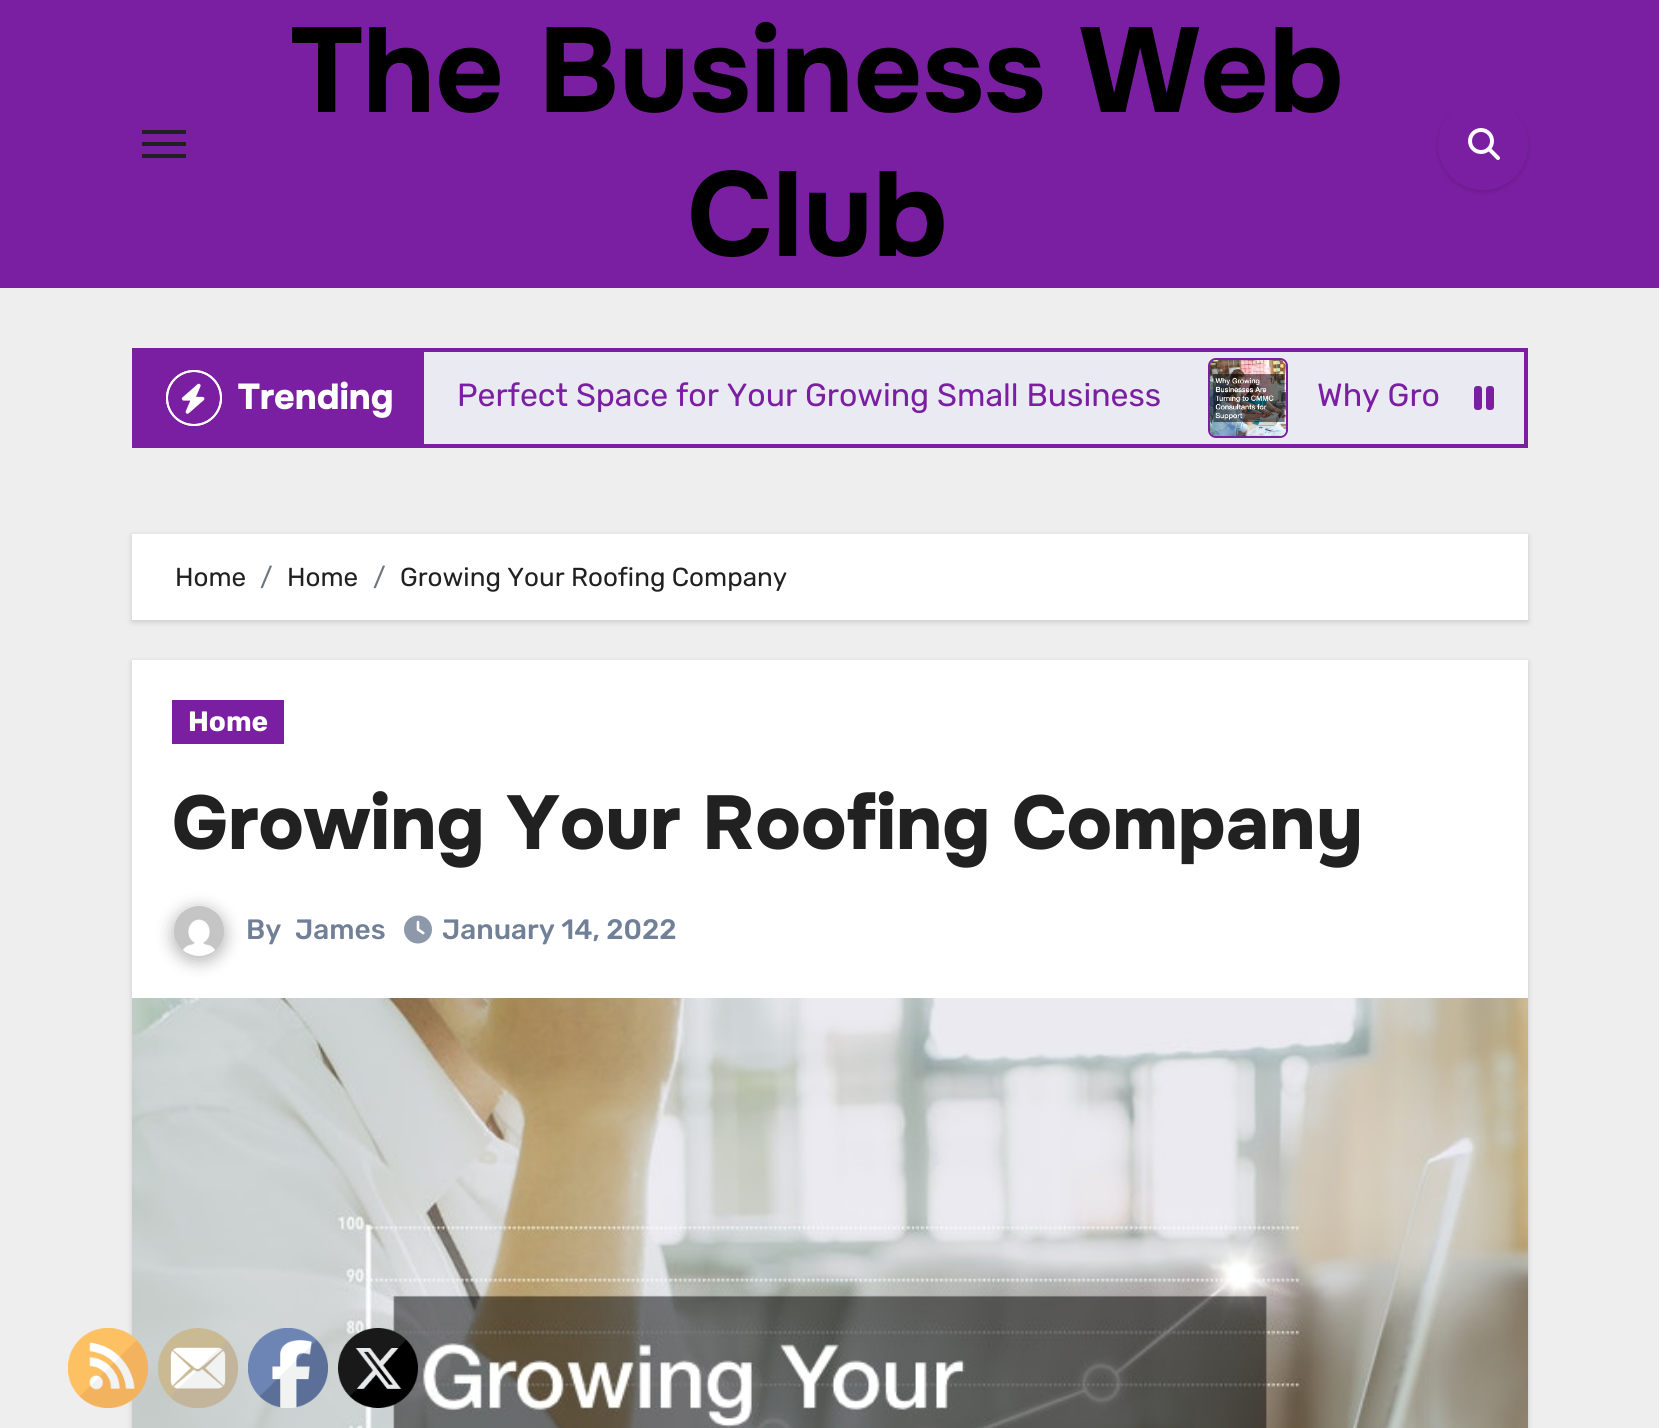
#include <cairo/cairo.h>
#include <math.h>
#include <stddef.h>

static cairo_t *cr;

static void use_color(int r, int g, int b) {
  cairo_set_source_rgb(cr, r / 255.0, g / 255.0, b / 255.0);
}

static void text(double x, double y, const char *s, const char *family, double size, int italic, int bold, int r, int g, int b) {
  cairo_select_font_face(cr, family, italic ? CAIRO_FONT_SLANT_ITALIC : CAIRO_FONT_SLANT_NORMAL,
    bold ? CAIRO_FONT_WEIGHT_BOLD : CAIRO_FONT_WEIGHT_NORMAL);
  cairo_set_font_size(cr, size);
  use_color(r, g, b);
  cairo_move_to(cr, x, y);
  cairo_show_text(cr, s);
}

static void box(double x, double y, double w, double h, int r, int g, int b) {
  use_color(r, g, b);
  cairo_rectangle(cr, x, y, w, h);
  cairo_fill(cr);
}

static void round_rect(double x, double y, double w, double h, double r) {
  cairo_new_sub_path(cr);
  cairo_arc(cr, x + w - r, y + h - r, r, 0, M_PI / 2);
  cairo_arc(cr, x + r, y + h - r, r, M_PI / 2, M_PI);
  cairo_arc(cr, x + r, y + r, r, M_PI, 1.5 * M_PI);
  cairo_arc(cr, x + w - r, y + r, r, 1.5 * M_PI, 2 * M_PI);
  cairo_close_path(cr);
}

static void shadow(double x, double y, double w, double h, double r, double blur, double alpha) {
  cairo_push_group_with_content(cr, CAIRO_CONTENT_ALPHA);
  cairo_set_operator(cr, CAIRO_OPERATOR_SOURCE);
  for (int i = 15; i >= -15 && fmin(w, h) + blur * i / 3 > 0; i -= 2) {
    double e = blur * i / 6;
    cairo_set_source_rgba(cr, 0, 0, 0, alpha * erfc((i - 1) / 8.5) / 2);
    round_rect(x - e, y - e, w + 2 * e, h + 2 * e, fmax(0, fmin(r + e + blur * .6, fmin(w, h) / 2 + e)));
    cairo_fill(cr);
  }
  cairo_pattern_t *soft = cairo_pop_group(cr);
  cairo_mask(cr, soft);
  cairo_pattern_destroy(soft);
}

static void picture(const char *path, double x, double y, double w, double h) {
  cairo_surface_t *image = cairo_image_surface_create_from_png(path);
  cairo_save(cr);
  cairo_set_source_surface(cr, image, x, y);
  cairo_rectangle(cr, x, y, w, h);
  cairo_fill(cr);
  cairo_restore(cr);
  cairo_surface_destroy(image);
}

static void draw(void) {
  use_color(238, 238, 238);
  cairo_paint(cr);
  box(0, 0, 1659, 288, 123, 31, 162);
  box(142, 130, 44, 4, 33, 33, 33);
  box(142, 142, 44, 4, 33, 33, 33);
  box(142, 154, 44, 4, 33, 33, 33);
  use_color(0, 0, 0);
  shadow(1438, 102, 90, 90, 45, 3, 0.15);
  use_color(123, 31, 162);
  cairo_arc(cr, 1483, 145, 45, 0, 2 * M_PI);
  cairo_fill(cr);
  picture("img_01.png", 1468, 128, 32, 32);
  box(454, 352, 990, 92, 234, 234, 243);
  cairo_rectangle(cr, 134, 350, 1392, 96);
  use_color(123, 31, 162);
  cairo_set_line_width(cr, 4);
  cairo_stroke(cr);
  box(424, 352, 30, 92, 234, 234, 243);
  box(136, 352, 288, 92, 123, 31, 162);
  cairo_arc(cr, 194, 398, 27, 0, 2 * M_PI);
  use_color(255, 255, 255);
  cairo_set_line_width(cr, 2);
  cairo_stroke(cr);
  picture("img_02.png", 181, 383, 24, 31);
  cairo_arc(cr, 194, 398, 27, 0, 2 * M_PI);
  cairo_stroke(cr);
  round_rect(1209, 359, 78, 78, 7);
  use_color(123, 31, 162);
  cairo_stroke(cr);
  picture("img_03.png", 1210, 360, 76, 76);
  box(1444, 352, 80, 92, 234, 234, 243);
  picture("img_04.png", 1474, 386, 20, 24);
  use_color(0, 0, 0);
  shadow(132, 536, 1396, 86, 0, 3, 0.15);
  box(132, 534, 1396, 86, 255, 255, 255);
  use_color(0, 0, 0);
  shadow(132, 662, 1396, 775, 0, 3, 0.15);
  box(132, 660, 1396, 338, 255, 255, 255);
  box(172, 700, 112, 44, 123, 31, 162);
  use_color(33, 33, 33);
  shadow(172, 908, 54, 54, 27, 8, 0.3);
  picture("img_05.png", 174, 906, 50, 50);
  picture("img_06.png", 404, 915, 28, 29);
  picture("img_07.png", 132, 998, 1396, 430);
  picture("img_08.png", 68, 1328, 80, 80);
  picture("img_09.png", 158, 1328, 80, 80);
  picture("img_10.png", 248, 1328, 80, 80);
  picture("img_11.png", 338, 1328, 80, 80);
  text(291, 112, "The Business Web", "Onest", 120, 0, 1, 0, 0, 0);
  text(687, 256, "Club", "Onest", 120, 0, 1, 0, 0, 0);
  text(238, 409, "Trending", "Onest ExtraBold", 36, 0, 0, 255, 255, 255);
  text(457, 406, "Perfect Space for Your Growing Small Business", "Rubik Light", 32, 0, 0, 123, 31, 162);
  text(1317, 406, "Why Gro", "Rubik Light", 32, 0, 0, 123, 31, 162);
  text(175, 586, "Home", "Rubik Light", 26, 0, 0, 33, 33, 33);
  text(260, 586, "/", "Rubik Light", 26, 0, 0, 108, 117, 125);
  text(287, 586, "Home", "Rubik Light", 26, 0, 0, 33, 33, 33);
  text(373, 586, "/", "Rubik Light", 26, 0, 0, 108, 117, 125);
  text(400, 586, "Growing Your Roofing Company", "Rubik Light", 26, 0, 0, 33, 33, 33);
  text(188, 731, "Home", "Rubik", 28, 0, 1, 255, 255, 255);
  text(172, 849, "Growing Your Roofing Company", "Onest ExtraBold", 76, 0, 0, 33, 33, 33);
  text(246, 939, "By", "Rubik Medium", 28, 0, 0, 113, 128, 150);
  text(295, 939, "James", "Rubik Medium", 28, 0, 0, 113, 128, 150);
  text(442, 939, "January 14, 2022", "Rubik Medium", 28, 0, 0, 113, 128, 150);
}

int main(void) {
  cairo_surface_t *surface = cairo_image_surface_create(CAIRO_FORMAT_RGB24, 1659, 1428);
  cr = cairo_create(surface);
  cairo_font_options_t *options = cairo_font_options_create();
  cairo_font_options_set_hint_metrics(options, CAIRO_HINT_METRICS_OFF);
  cairo_font_options_set_hint_style(options, CAIRO_HINT_STYLE_NONE);
  cairo_set_font_options(cr, options);
  cairo_set_miter_limit(cr, 4);
  draw();
  cairo_surface_write_to_png(surface, "out.png");
  cairo_font_options_destroy(options);
  cairo_destroy(cr);
  cairo_surface_destroy(surface);
  return 0;
}
